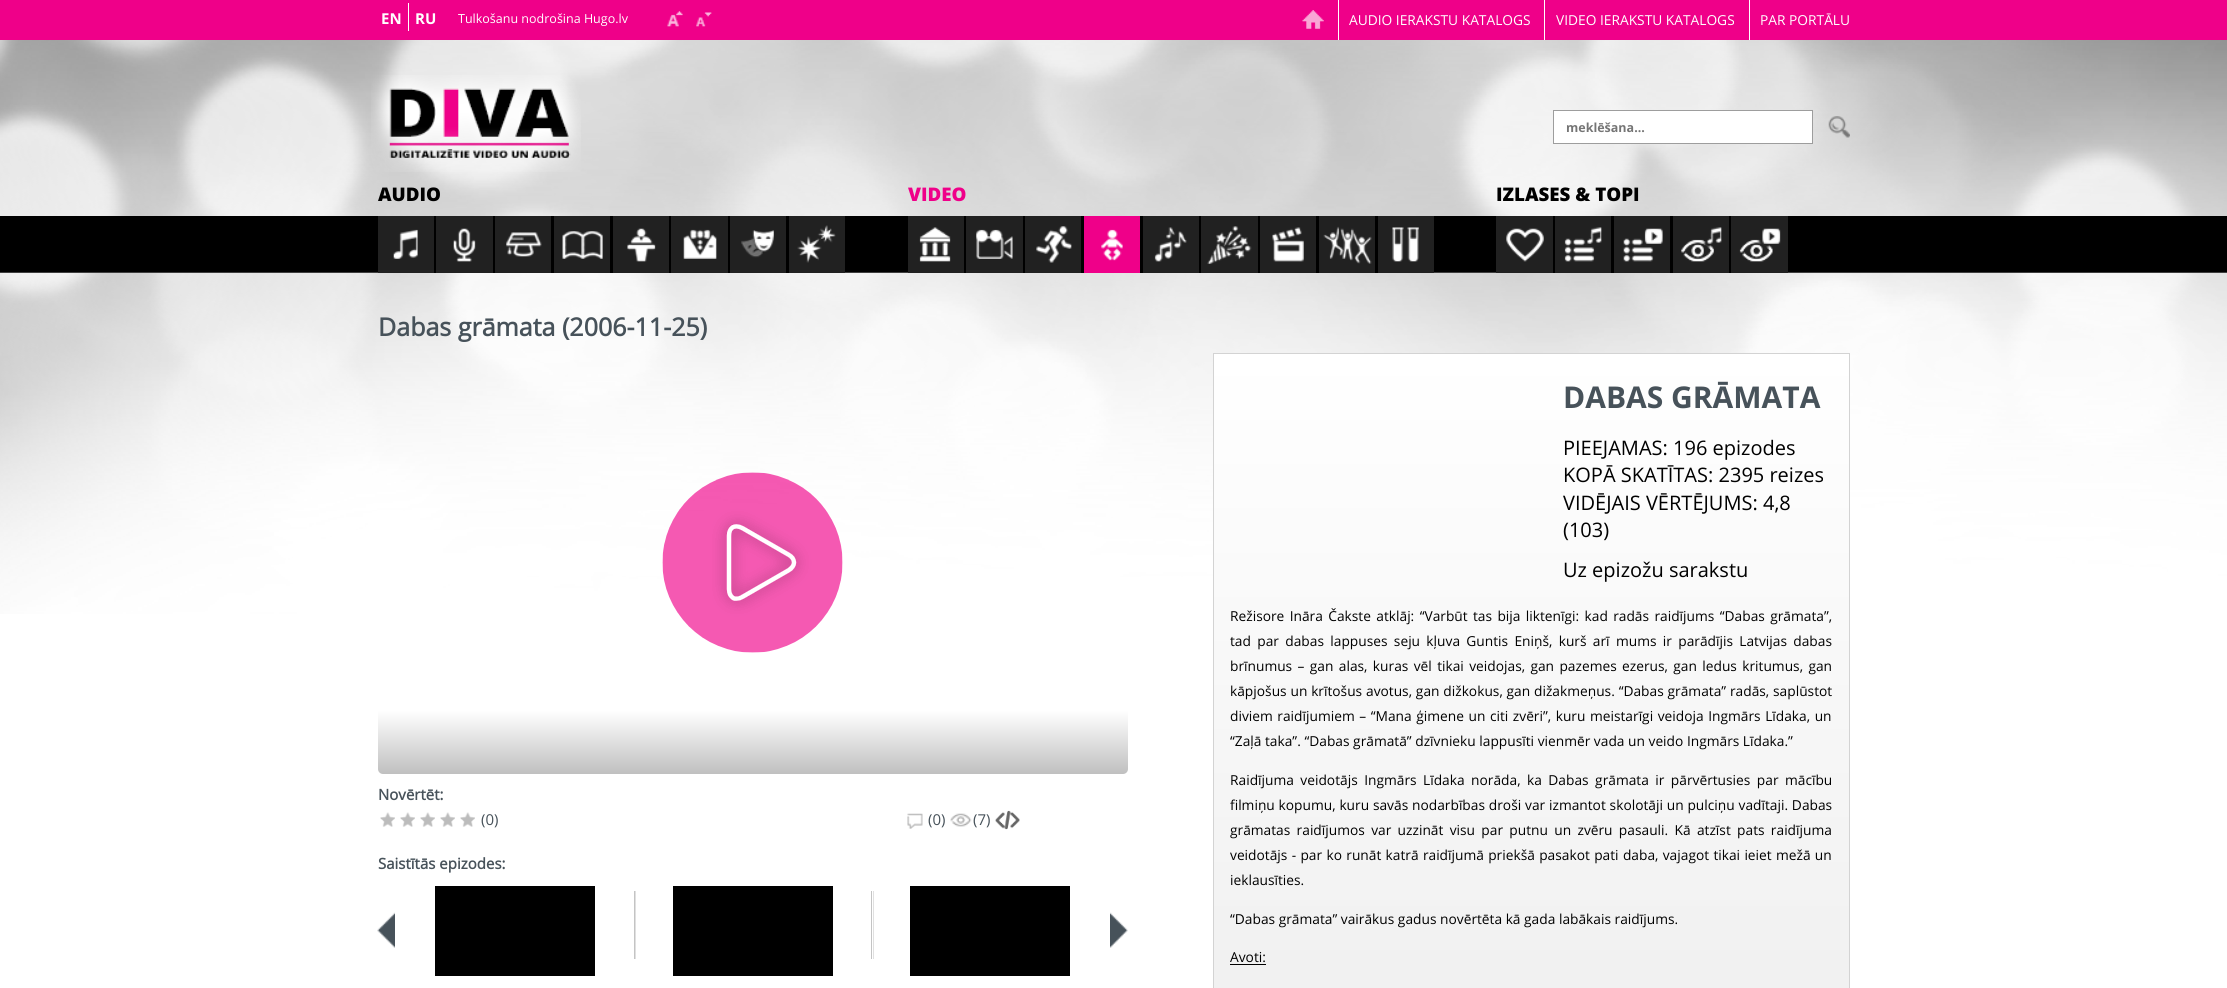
#include <cairo/cairo.h>
#include <math.h>
#include <stddef.h>

static cairo_t *cr;

static void use_color(int r, int g, int b) {
  cairo_set_source_rgb(cr, r / 255.0, g / 255.0, b / 255.0);
}

static void text(double x, double y, const char *s, const char *family, double size, int italic, int bold, int r, int g, int b) {
  cairo_select_font_face(cr, family, italic ? CAIRO_FONT_SLANT_ITALIC : CAIRO_FONT_SLANT_NORMAL,
    bold ? CAIRO_FONT_WEIGHT_BOLD : CAIRO_FONT_WEIGHT_NORMAL);
  cairo_set_font_size(cr, size);
  use_color(r, g, b);
  cairo_move_to(cr, x, y);
  cairo_show_text(cr, s);
}

static void spaced_text(double x, double y, const char *s, double letter, double word) {
  cairo_move_to(cr, x, y);
  while (*s) {
    char ch[5] = {0};
    int n = 0;
    do ch[n++] = *s++; while ((*s & 0xC0) == 0x80);
    cairo_show_text(cr, ch);
    cairo_rel_move_to(cr, letter + word * (*ch == ' '), 0);
  }
}

static void box(double x, double y, double w, double h, int r, int g, int b) {
  use_color(r, g, b);
  cairo_rectangle(cr, x, y, w, h);
  cairo_fill(cr);
}

static void round_rect(double x, double y, double w, double h, double r) {
  cairo_new_sub_path(cr);
  cairo_arc(cr, x + w - r, y + h - r, r, 0, M_PI / 2);
  cairo_arc(cr, x + r, y + h - r, r, M_PI / 2, M_PI);
  cairo_arc(cr, x + r, y + r, r, M_PI, 1.5 * M_PI);
  cairo_arc(cr, x + w - r, y + r, r, 1.5 * M_PI, 2 * M_PI);
  cairo_close_path(cr);
}

static void picture(const char *path, double x, double y, double w, double h) {
  cairo_surface_t *image = cairo_image_surface_create_from_png(path);
  cairo_save(cr);
  cairo_set_source_surface(cr, image, x, y);
  cairo_rectangle(cr, x, y, w, h);
  cairo_fill(cr);
  cairo_restore(cr);
  cairo_surface_destroy(image);
}

static void draw(void) {
  cairo_pattern_t *gradient;
  use_color(255, 255, 255);
  cairo_paint(cr);
  picture("img_01.png", 0, 40, 2227, 574);
  box(0, 0, 2227, 40, 239, 0, 137);
  box(408, 3, 1, 28, 255, 255, 255);
  picture("img_02.png", 667, 11, 16, 16);
  picture("img_03.png", 696, 12, 16, 15);
  picture("img_04.png", 371, 75, 210, 97);
  cairo_rectangle(cr, 1553.5, 110.5, 259, 33);
  cairo_fill_preserve(cr);
  use_color(157, 157, 157);
  cairo_set_line_width(cr, 1);
  cairo_stroke(cr);
  picture("img_05.png", 1828, 116, 22, 22);
  picture("img_06.png", 1302, 10, 22, 19);
  box(1338, 0, 1, 40, 255, 255, 255);
  box(1544, 0, 1, 40, 255, 255, 255);
  box(1749, 0, 1, 40, 255, 255, 255);
  box(0, 216, 2227, 56, 0, 0, 0);
  box(0, 272, 2227, 1, 63, 63, 63);
  box(434, 272, 355, 1, 0, 0, 0);
  box(378, 216, 56, 57, 33, 33, 33);
  picture("img_07.png", 393, 229, 25, 30);
  box(436, 216, 57, 57, 33, 33, 33);
  picture("img_08.png", 453, 228, 23, 34);
  box(495, 216, 56, 57, 33, 33, 33);
  picture("img_09.png", 506, 232, 36, 25);
  box(554, 216, 56, 57, 33, 33, 33);
  picture("img_10.png", 562, 231, 41, 28);
  box(613, 216, 56, 57, 33, 33, 33);
  picture("img_11.png", 627, 228, 29, 34);
  box(671, 216, 57, 57, 33, 33, 33);
  picture("img_12.png", 683, 229, 34, 30);
  box(730, 216, 56, 57, 33, 33, 33);
  picture("img_13.png", 741, 230, 33, 28);
  box(789, 216, 56, 57, 33, 33, 33);
  picture("img_14.png", 797, 225, 39, 38);
  box(964, 272, 414, 1, 0, 0, 0);
  box(908, 216, 56, 57, 33, 33, 33);
  picture("img_15.png", 919, 227, 32, 35);
  box(966, 216, 57, 57, 33, 33, 33);
  picture("img_16.png", 976, 229, 37, 30);
  box(1025, 216, 56, 57, 33, 33, 33);
  picture("img_17.png", 1036, 226, 36, 37);
  box(1084, 216, 56, 57, 239, 0, 137);
  picture("img_18.png", 1101, 229, 22, 32);
  box(1143, 216, 56, 57, 33, 33, 33);
  picture("img_19.png", 1154, 227, 33, 35);
  box(1201, 216, 57, 57, 33, 33, 33);
  picture("img_20.png", 1207, 226, 45, 38);
  box(1260, 216, 56, 57, 33, 33, 33);
  picture("img_21.png", 1272, 227, 32, 35);
  box(1319, 216, 56, 57, 33, 33, 33);
  picture("img_22.png", 1323, 226, 49, 38);
  box(1378, 216, 56, 57, 33, 33, 33);
  picture("img_23.png", 1392, 227, 27, 35);
  box(1553, 272, 178, 1, 0, 0, 0);
  box(1496, 216, 57, 57, 33, 33, 33);
  picture("img_24.png", 1506, 228, 38, 34);
  box(1555, 216, 56, 57, 33, 33, 33);
  picture("img_25.png", 1564, 227, 38, 35);
  box(1614, 216, 56, 57, 33, 33, 33);
  picture("img_26.png", 1623, 228, 40, 34);
  box(1673, 216, 56, 57, 33, 33, 33);
  picture("img_27.png", 1681, 227, 41, 35);
  box(1731, 216, 57, 57, 33, 33, 33);
  picture("img_28.png", 1739, 228, 42, 34);
  gradient = cairo_pattern_create_linear(753, 774, 753, 351);
  cairo_pattern_add_color_stop_rgba(gradient, 0, 0, 0, 0, 0.25);
  cairo_pattern_add_color_stop_rgba(gradient, 0.15, 0, 0, 0, 0);
  cairo_set_source(cr, gradient);
  cairo_pattern_destroy(gradient);
  round_rect(378, 351, 750, 423, 5);
  cairo_fill(cr);
  picture("img_29.png", 662, 472, 181, 181);
  picture("img_30.png", 380, 812, 15, 15);
  picture("img_31.png", 400, 812, 15, 15);
  picture("img_30.png", 420, 812, 15, 15);
  picture("img_31.png", 440, 812, 15, 15);
  picture("img_31.png", 460, 812, 15, 15);
  picture("img_32.png", 907, 813, 16, 16);
  picture("img_33.png", 950, 813, 22, 14);
  picture("img_34.png", 995, 810, 25, 20);
  picture("img_35.png", 377, 912, 18, 36);
  box(435, 886, 160, 90, 0, 0, 0);
  box(635, 891, 1, 68, 224, 224, 224);
  box(634, 891, 1, 68, 196, 196, 196);
  box(673, 886, 160, 90, 0, 0, 0);
  box(873, 891, 1, 68, 224, 224, 224);
  box(871, 891, 1, 68, 196, 196, 196);
  box(910, 886, 160, 90, 0, 0, 0);
  picture("img_36.png", 1110, 912, 18, 36);
  gradient = cairo_pattern_create_linear(1531, 354, 1531, 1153);
  cairo_pattern_add_color_stop_rgba(gradient, 0, 1, 1, 1, 1);
  cairo_pattern_add_color_stop_rgba(gradient, 1, 0.929, 0.929, 0.929, 1);
  cairo_set_source(cr, gradient);
  cairo_pattern_destroy(gradient);
  cairo_rectangle(cr, 1214, 354, 635, 634);
  cairo_fill(cr);
  cairo_rectangle(cr, 1213.5, 353.5, 636, 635);
  use_color(211, 211, 211);
  cairo_stroke(cr);
  box(1230, 964, 36, 1, 0, 0, 0);
  text(381, 24, "EN", "Open Sans", 15, 0, 1, 255, 255, 255);
  text(415, 24, "RU", "Open Sans", 15, 0, 1, 255, 255, 255);
  text(458, 23, "Tulkošanu nodrošina Hugo.lv", "Open Sans", 12.5, 0, 0, 255, 255, 255);
  text(1566, 132, "meklēšana...", "Open Sans", 12.5, 0, 1, 117, 117, 117);
  text(1349, 25, "AUDIO IERAKSTU KATALOGS", "Open Sans", 13.75, 0, 0, 255, 255, 255);
  text(1556, 25, "VIDEO IERAKSTU KATALOGS", "Open Sans", 13.75, 0, 0, 255, 255, 255);
  text(1760, 25, "PAR PORTĀLU", "Open Sans", 13.75, 0, 0, 255, 255, 255);
  text(378, 201, "AUDIO", "Open Sans ExtraBold", 18.75, 0, 0, 0, 0, 0);
  text(908, 201, "VIDEO", "Open Sans ExtraBold", 18.75, 0, 0, 239, 0, 137);
  text(1496, 201, "IZLASES & TOPI", "Open Sans ExtraBold", 18.75, 0, 0, 0, 0, 0);
  text(378, 336, "Dabas grāmata (2006-11-25)", "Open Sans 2", 25, 0, 1, 71, 82, 90);
  text(378, 800, "Novērtēt:", "Open Sans 2", 15, 0, 1, 71, 82, 90);
  text(481, 825, "(0)", "Open Sans", 15, 0, 0, 71, 82, 90);
  text(928, 825, "(0)", "Open Sans", 15, 0, 0, 71, 82, 90);
  text(973, 825, "(7)", "Open Sans", 15, 0, 0, 71, 82, 90);
  text(378, 869, "Saistītās epizodes:", "Open Sans 2", 15, 0, 1, 71, 82, 90);
  text(1563, 408, "DABAS GRĀMATA", "Open Sans", 30, 0, 1, 71, 82, 90);
  text(1563, 455, "PIEEJAMAS: 196 epizodes", "Open Sans", 20, 0, 0, 0, 0, 0);
  text(1563, 482, "KOPĀ SKATĪTAS: 2395 reizes", "Open Sans", 20, 0, 0, 0, 0, 0);
  text(1563, 510, "VIDĒJAIS VĒRTĒJUMS: 4,8", "Open Sans", 20, 0, 0, 0, 0, 0);
  text(1563, 537, "(103)", "Open Sans", 20, 0, 0, 0, 0, 0);
  text(1563, 577, "Uz epizožu sarakstu", "Open Sans", 20, 0, 0, 0, 0, 0);
  cairo_set_font_size(cr, 13.75);
  spaced_text(1230, 621, "Režisore Ināra Čakste atklāj: “Varbūt tas bija liktenīgi: kad radās raidījums “Dabas grāmata”,", 0, 1.8);
  spaced_text(1230, 646, "tad par dabas lappuses seju kļuva Guntis Eniņš, kurš arī mums ir parādījis Latvijas dabas", 0, 2.75);
  spaced_text(1230, 671, "brīnumus – gan alas, kuras vēl tikai veidojas, gan pazemes ezerus, gan ledus kritumus, gan", 0, 1.8);
  spaced_text(1230, 696, "kāpjošus un krītošus avotus, gan dižkokus, gan dižakmeņus. “Dabas grāmata” radās, saplūstot", 0, 0.25);
  spaced_text(1230, 721, "diviem raidījumiem – “Mana ģimene un citi zvēri”, kuru meistarīgi veidoja Ingmārs Līdaka, un", 0, 1);
  text(1230, 746, "“Zaļā taka”. “Dabas grāmatā” dzīvnieku lappusīti vienmēr vada un veido Ingmārs Līdaka.”", "Open Sans", 13.75, 0, 0, 0, 0, 0);
  spaced_text(1230, 785, "Raidījuma veidotājs Ingmārs Līdaka norāda, ka Dabas grāmata ir pārvērtusies par mācību", 0, 2.9);
  spaced_text(1230, 810, "filmiņu kopumu, kuru savās nodarbības droši var izmantot skolotāji un pulciņu vadītaji. Dabas", 0, 0.25);
  spaced_text(1230, 835, "grāmatas raidījumos var uzzināt visu par putnu un zvēru pasauli. Kā atzīst pats raidījuma", 0, 2.75);
  spaced_text(1230, 860, "veidotājs - par ko runāt katrā raidījumā priekšā pasakot pati daba, vajagot tikai ieiet mežā un", 0, 0.75);
  text(1230, 885, "ieklausīties.", "Open Sans", 13.75, 0, 0, 0, 0, 0);
  text(1230, 924, "“Dabas grāmata” vairākus gadus novērtēta kā gada labākais raidījums.", "Open Sans", 13.75, 0, 0, 0, 0, 0);
  text(1230, 962, "Avoti:", "Open Sans", 13.75, 0, 0, 0, 0, 0);
}

int main(void) {
  cairo_surface_t *surface = cairo_image_surface_create(CAIRO_FORMAT_RGB24, 2227, 988);
  cr = cairo_create(surface);
  cairo_font_options_t *options = cairo_font_options_create();
  cairo_font_options_set_hint_metrics(options, CAIRO_HINT_METRICS_OFF);
  cairo_font_options_set_hint_style(options, CAIRO_HINT_STYLE_NONE);
  cairo_set_font_options(cr, options);
  cairo_set_miter_limit(cr, 4);
  draw();
  cairo_surface_write_to_png(surface, "out.png");
  cairo_font_options_destroy(options);
  cairo_destroy(cr);
  cairo_surface_destroy(surface);
  return 0;
}
